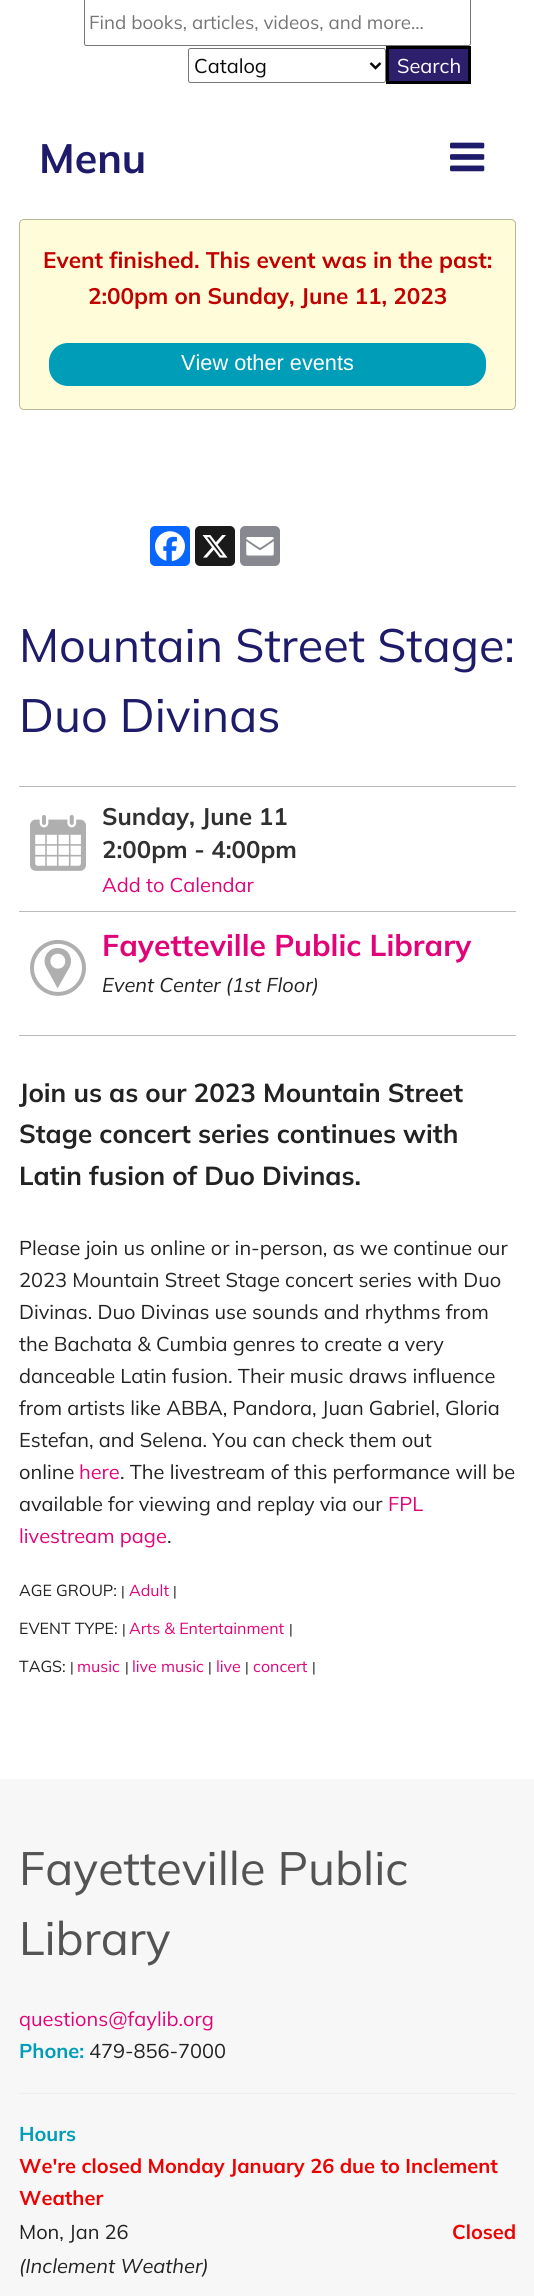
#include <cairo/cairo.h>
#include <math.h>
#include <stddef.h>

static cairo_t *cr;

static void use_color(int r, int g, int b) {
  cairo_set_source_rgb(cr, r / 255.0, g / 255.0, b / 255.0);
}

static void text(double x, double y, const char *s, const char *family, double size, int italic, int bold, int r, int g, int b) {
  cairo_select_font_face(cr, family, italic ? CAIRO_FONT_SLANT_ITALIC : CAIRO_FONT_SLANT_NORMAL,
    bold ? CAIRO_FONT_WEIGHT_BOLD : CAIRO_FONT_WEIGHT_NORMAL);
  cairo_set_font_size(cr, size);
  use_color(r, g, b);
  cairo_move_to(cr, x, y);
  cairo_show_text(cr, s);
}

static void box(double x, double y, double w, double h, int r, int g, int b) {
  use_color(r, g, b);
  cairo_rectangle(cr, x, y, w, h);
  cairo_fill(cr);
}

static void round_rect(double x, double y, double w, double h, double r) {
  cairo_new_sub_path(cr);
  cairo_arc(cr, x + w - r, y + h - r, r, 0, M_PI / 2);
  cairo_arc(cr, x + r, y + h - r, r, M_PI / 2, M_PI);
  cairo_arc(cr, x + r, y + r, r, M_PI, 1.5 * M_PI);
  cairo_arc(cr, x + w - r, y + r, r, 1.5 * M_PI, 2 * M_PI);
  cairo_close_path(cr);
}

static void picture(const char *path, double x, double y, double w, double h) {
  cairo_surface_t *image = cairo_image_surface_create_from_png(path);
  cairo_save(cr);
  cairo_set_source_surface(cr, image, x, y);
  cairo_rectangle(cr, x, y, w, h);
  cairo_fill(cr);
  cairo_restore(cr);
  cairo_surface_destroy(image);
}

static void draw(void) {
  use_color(255, 255, 255);
  cairo_paint(cr);
  round_rect(84.5, -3.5, 386, 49, 2);
  use_color(118, 118, 118);
  cairo_set_line_width(cr, 1);
  cairo_stroke(cr);
  round_rect(188.5, 48.5, 197, 34, 2);
  cairo_stroke(cr);
  cairo_new_path(cr);
  cairo_move_to(cr, 370.5, 63);
  cairo_line_to(cr, 375.5, 68);
  cairo_line_to(cr, 380.5, 63);
  use_color(10, 10, 10);
  cairo_set_line_width(cr, 2.5);
  cairo_stroke(cr);
  use_color(46, 31, 109);
  cairo_rectangle(cr, 387.5, 47.5, 82, 35);
  cairo_fill_preserve(cr);
  use_color(0, 0, 0);
  cairo_set_line_width(cr, 3);
  cairo_stroke(cr);
  picture("img_01.png", 450, 142, 35, 30);
  use_color(255, 253, 217);
  round_rect(19.5, 219.5, 496, 190, 4.5);
  cairo_fill_preserve(cr);
  use_color(184, 183, 154);
  cairo_set_line_width(cr, 1);
  cairo_stroke(cr);
  use_color(0, 157, 184);
  round_rect(49, 343, 437, 43, 19);
  cairo_fill(cr);
  use_color(8, 102, 255);
  round_rect(150, 526, 40, 40, 5);
  cairo_fill(cr);
  picture("img_02.png", 155, 531, 30, 31);
  use_color(26, 26, 26);
  round_rect(195, 526, 40, 40, 5);
  cairo_fill(cr);
  picture("img_03.png", 202, 535, 26, 23);
  use_color(136, 137, 144);
  round_rect(240, 526, 40, 40, 5);
  cairo_fill(cr);
  picture("img_04.png", 246, 537, 28, 19);
  box(19, 786, 497, 1, 187, 187, 187);
  picture("img_05.png", 30, 815, 56, 56);
  box(19, 911, 497, 1, 187, 187, 187);
  picture("img_06.png", 30, 939, 56, 57);
  box(19, 1035, 497, 1, 187, 187, 187);
  box(0, 1779, 534, 517, 247, 247, 247);
  box(19, 2093, 497, 1, 238, 238, 238);
  text(89, 29, "Find books, articles, videos, and more...", "Mulish", 18.75, 0, 0, 117, 117, 117);
  text(194, 73, "Catalog", "Mulish", 20, 0, 0, 10, 10, 10);
  text(397, 73, "Search", "Mulish", 20, 0, 0, 255, 255, 255);
  text(39, 173, "Menu", "Mulish", 41, 0, 1, 30, 27, 106);
  text(43, 268, "Event finished. This event was in the past:", "Mulish", 22.5, 0, 1, 193, 0, 0);
  text(88, 304, "2:00pm on Sunday, June 11, 2023", "Mulish", 22.5, 0, 1, 193, 0, 0);
  text(181, 370, "View other events", "Liberation Sans", 21.75, 0, 0, 255, 255, 255);
  text(19, 662, "Mountain Street Stage:", "Mulish", 46.75, 0, 0, 30, 27, 106);
  text(19, 732, "Duo Divinas", "Mulish", 46.75, 0, 0, 30, 27, 106);
  text(102, 825, "Sunday, June 11", "Mulish", 24, 0, 1, 48, 48, 48);
  text(102, 858, "2:00pm - 4:00pm", "Mulish", 24, 0, 1, 48, 48, 48);
  text(102, 892, "Add to Calendar", "Mulish", 20, 0, 0, 225, 3, 120);
  text(102, 956, "Fayetteville Public Library", "Mulish", 30, 0, 1, 225, 3, 120);
  text(102, 992, "Event Center (1st Floor)", "Mulish ExtraLight", 20, 1, 0, 34, 34, 34);
  text(19, 1102, "Join us as our 2023 Mountain Street", "Mulish", 26, 0, 1, 34, 34, 34);
  text(19, 1143, "Stage concert series continues with", "Mulish", 26, 0, 1, 34, 34, 34);
  text(19, 1185, "Latin fusion of Duo Divinas.", "Mulish", 26, 0, 1, 34, 34, 34);
  text(19, 1255, "Please join us online or in-person, as we continue our", "Mulish", 20, 0, 0, 34, 34, 34);
  text(19, 1287, "2023 Mountain Street Stage concert series with Duo", "Mulish", 20, 0, 0, 34, 34, 34);
  text(19, 1319, "Divinas. Duo Divinas use sounds and rhythms from", "Mulish", 20, 0, 0, 34, 34, 34);
  text(19, 1351, "the Bachata & Cumbia genres to create a very", "Mulish", 20, 0, 0, 34, 34, 34);
  text(19, 1383, "danceable Latin fusion. Their music draws influence", "Mulish", 20, 0, 0, 34, 34, 34);
  text(19, 1415, "from artists like ABBA, Pandora, Juan Gabriel, Gloria", "Mulish", 20, 0, 0, 34, 34, 34);
  text(19, 1447, "Estefan, and Selena. You can check them out", "Mulish", 20, 0, 0, 34, 34, 34);
  text(19, 1479, "online", "Mulish", 20, 0, 0, 34, 34, 34);
  text(79, 1479, "here", "Mulish", 20, 0, 0, 225, 3, 120);
  text(120, 1479, ". The livestream of this performance will be", "Mulish", 20, 0, 0, 34, 34, 34);
  text(19, 1511, "available for viewing and replay via our", "Mulish", 20, 0, 0, 34, 34, 34);
  text(388, 1511, "FPL", "Mulish", 20, 0, 0, 225, 3, 120);
  text(19, 1543, "livestream page", "Mulish", 20, 0, 0, 225, 3, 120);
  text(167, 1543, ".", "Mulish", 20, 0, 0, 34, 34, 34);
  text(19, 1596, "AGE GROUP:", "Mulish", 16, 0, 0, 34, 34, 34);
  text(121, 1596, "|", "Mulish", 14, 0, 0, 34, 34, 34);
  text(129, 1596, "Adult", "Mulish", 16, 0, 0, 225, 3, 120);
  text(173, 1596, "|", "Mulish", 14, 0, 0, 34, 34, 34);
  text(19, 1634, "EVENT TYPE:", "Mulish", 16, 0, 0, 34, 34, 34);
  text(122, 1634, "|", "Mulish", 14, 0, 0, 34, 34, 34);
  text(129, 1634, "Arts & Entertainment", "Mulish", 16, 0, 0, 225, 3, 120);
  text(289, 1634, "|", "Mulish", 14, 0, 0, 34, 34, 34);
  text(19, 1672, "TAGS:", "Mulish", 16, 0, 0, 34, 34, 34);
  text(70, 1672, "|", "Mulish", 14, 0, 0, 34, 34, 34);
  text(77, 1672, "music", "Mulish", 16, 0, 0, 225, 3, 120);
  text(125, 1672, "|", "Mulish", 14, 0, 0, 34, 34, 34);
  text(132, 1672, "live music", "Mulish", 16, 0, 0, 225, 3, 120);
  text(208, 1672, "|", "Mulish", 14, 0, 0, 34, 34, 34);
  text(216, 1672, "live", "Mulish", 16, 0, 0, 225, 3, 120);
  text(245, 1672, "|", "Mulish", 14, 0, 0, 34, 34, 34);
  text(253, 1672, "concert", "Mulish", 16, 0, 0, 225, 3, 120);
  text(312, 1672, "|", "Mulish", 14, 0, 0, 34, 34, 34);
  text(19, 1885, "Fayetteville Public", "Mulish", 46.75, 0, 0, 83, 83, 83);
  text(19, 1955, "Library", "Mulish", 46.75, 0, 0, 83, 83, 83);
  text(19, 2026, "questions@faylib.org", "Mulish", 20, 0, 0, 225, 3, 120);
  text(19, 2058, "Phone:", "Mulish", 20, 0, 1, 0, 157, 184);
  text(89, 2058, "479-856-7000", "Mulish", 20, 0, 0, 34, 34, 34);
  text(19, 2141, "Hours", "Mulish", 20, 0, 1, 0, 157, 184);
  text(19, 2173, "We're closed Monday January 26 due to Inclement", "Mulish", 20, 0, 1, 237, 2, 2);
  text(19, 2205, "Weather", "Mulish", 20, 0, 1, 237, 2, 2);
  text(19, 2239, "Mon, Jan 26", "Mulish", 20, 0, 0, 34, 34, 34);
  text(452, 2239, "Closed", "Mulish", 20, 0, 1, 237, 2, 2);
  text(19, 2273, "(Inclement Weather)", "Mulish ExtraLight", 20, 1, 0, 34, 34, 34);
}

int main(void) {
  cairo_surface_t *surface = cairo_image_surface_create(CAIRO_FORMAT_RGB24, 534, 2296);
  cr = cairo_create(surface);
  cairo_font_options_t *options = cairo_font_options_create();
  cairo_font_options_set_hint_metrics(options, CAIRO_HINT_METRICS_OFF);
  cairo_font_options_set_hint_style(options, CAIRO_HINT_STYLE_NONE);
  cairo_set_font_options(cr, options);
  cairo_set_miter_limit(cr, 4);
  draw();
  cairo_surface_write_to_png(surface, "out.png");
  cairo_font_options_destroy(options);
  cairo_destroy(cr);
  cairo_surface_destroy(surface);
  return 0;
}
